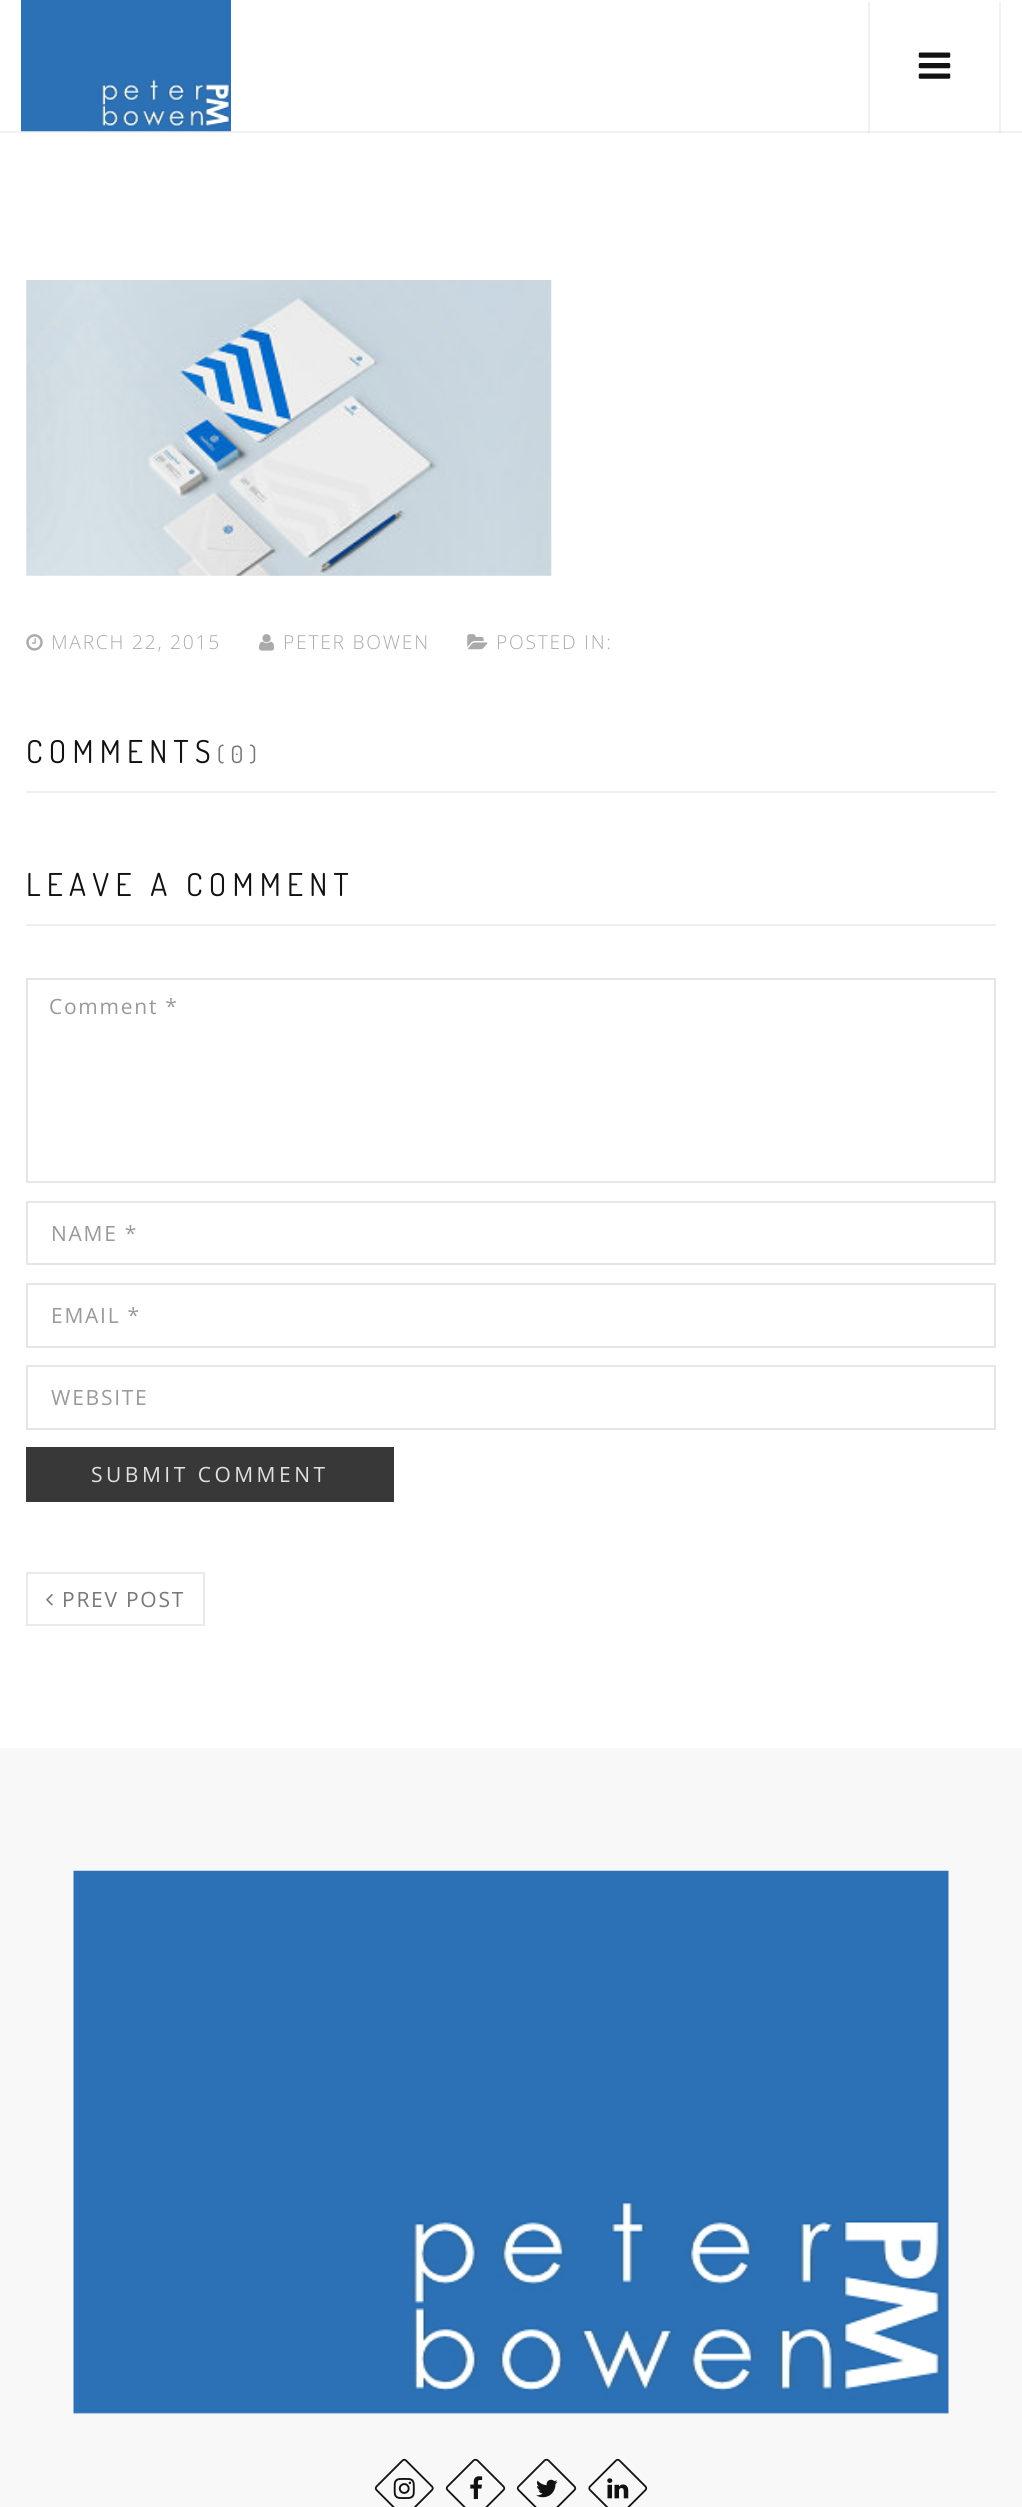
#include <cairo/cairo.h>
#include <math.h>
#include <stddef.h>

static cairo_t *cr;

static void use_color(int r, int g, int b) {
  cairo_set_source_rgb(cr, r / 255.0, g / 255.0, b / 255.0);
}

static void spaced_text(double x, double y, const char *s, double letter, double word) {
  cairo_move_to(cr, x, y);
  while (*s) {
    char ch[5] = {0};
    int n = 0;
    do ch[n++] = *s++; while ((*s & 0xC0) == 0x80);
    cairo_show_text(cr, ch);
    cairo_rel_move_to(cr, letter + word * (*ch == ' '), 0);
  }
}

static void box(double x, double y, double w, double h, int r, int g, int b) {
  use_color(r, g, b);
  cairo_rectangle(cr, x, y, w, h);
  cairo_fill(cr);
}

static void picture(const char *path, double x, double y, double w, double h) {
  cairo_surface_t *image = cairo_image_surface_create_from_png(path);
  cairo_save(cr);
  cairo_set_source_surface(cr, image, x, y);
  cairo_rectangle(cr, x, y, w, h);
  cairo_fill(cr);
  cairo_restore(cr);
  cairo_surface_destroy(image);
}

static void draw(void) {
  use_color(255, 255, 255);
  cairo_paint(cr);
  box(868, 2, 2, 131, 242, 242, 242);
  box(999, 2, 2, 131, 242, 242, 242);
  box(0, 131, 1022, 2, 242, 242, 242);
  box(868, 131, 2, 2, 230, 230, 230);
  box(999, 131, 2, 2, 230, 230, 230);
  picture("img_01.png", 21, 0, 210, 132);
  picture("img_02.png", 918, 52, 33, 27);
  picture("img_03.png", 26, 280, 526, 296);
  picture("img_04.png", 26, 634, 17, 17);
  picture("img_05.png", 259, 634, 16, 17);
  picture("img_06.png", 467, 634, 21, 16);
  box(26, 791, 970, 2, 238, 238, 238);
  box(26, 924, 970, 2, 238, 238, 238);
  cairo_rectangle(cr, 27, 979, 968, 203);
  use_color(230, 230, 230);
  cairo_stroke(cr);
  cairo_rectangle(cr, 27, 1202, 968, 62);
  cairo_stroke(cr);
  cairo_rectangle(cr, 27, 1284, 968, 63);
  cairo_stroke(cr);
  cairo_rectangle(cr, 27, 1366, 968, 63);
  cairo_stroke(cr);
  box(26, 1447, 368, 55, 56, 56, 56);
  cairo_rectangle(cr, 27, 1573, 177, 52);
  use_color(234, 234, 234);
  cairo_stroke(cr);
  picture("img_07.png", 46, 1594, 7, 12);
  box(0, 1748, 1022, 759, 248, 248, 248);
  picture("img_08.png", 73, 1870, 876, 544);
  cairo_new_path(cr);
  cairo_move_to(cr, 406, 2460.5);
  cairo_line_to(cr, 432, 2486.5);
  cairo_curve_to(cr, 433, 2487.5, 433, 2489, 432, 2490);
  cairo_line_to(cr, 406, 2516);
  cairo_curve_to(cr, 405, 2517, 403.5, 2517, 402.5, 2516);
  cairo_line_to(cr, 376.5, 2490);
  cairo_curve_to(cr, 375.5, 2489, 375.5, 2487.5, 376.5, 2486.5);
  cairo_line_to(cr, 402.5, 2460.5);
  cairo_curve_to(cr, 403.5, 2459.5, 405, 2459.5, 406, 2460.5);
  cairo_close_path(cr);
  use_color(17, 17, 17);
  cairo_set_line_width(cr, 1.8);
  cairo_stroke(cr);
  picture("img_09.png", 393, 2478, 22, 21);
  cairo_new_path(cr);
  cairo_move_to(cr, 477.5, 2460.5);
  cairo_line_to(cr, 503.5, 2486.5);
  cairo_curve_to(cr, 504.5, 2487.5, 504.5, 2489, 503.5, 2490);
  cairo_line_to(cr, 477.5, 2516);
  cairo_curve_to(cr, 476.5, 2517, 474.5, 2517, 473.5, 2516);
  cairo_line_to(cr, 447.5, 2490);
  cairo_curve_to(cr, 446.5, 2489, 446.5, 2487.5, 447.5, 2486.5);
  cairo_line_to(cr, 473.5, 2460.5);
  cairo_curve_to(cr, 474.5, 2459.5, 476.5, 2459.5, 477.5, 2460.5);
  cairo_close_path(cr);
  cairo_stroke(cr);
  picture("img_10.png", 470, 2476, 13, 23);
  cairo_new_path(cr);
  cairo_move_to(cr, 548.5, 2460.5);
  cairo_line_to(cr, 574.5, 2486.5);
  cairo_curve_to(cr, 575.5, 2487.5, 575.5, 2489, 574.5, 2490);
  cairo_line_to(cr, 548.5, 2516);
  cairo_curve_to(cr, 547.5, 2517, 545.5, 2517, 544.5, 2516);
  cairo_line_to(cr, 518.5, 2490);
  cairo_curve_to(cr, 517.5, 2489, 517.5, 2487.5, 518.5, 2486.5);
  cairo_line_to(cr, 544.5, 2460.5);
  cairo_curve_to(cr, 545.5, 2459.5, 547.5, 2459.5, 548.5, 2460.5);
  cairo_close_path(cr);
  cairo_stroke(cr);
  picture("img_11.png", 536, 2479, 22, 19);
  cairo_new_path(cr);
  cairo_move_to(cr, 619.5, 2460.5);
  cairo_line_to(cr, 645.5, 2486.5);
  cairo_curve_to(cr, 646.5, 2487.5, 646.5, 2489, 645.5, 2490);
  cairo_line_to(cr, 619.5, 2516);
  cairo_curve_to(cr, 618.5, 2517, 617, 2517, 616, 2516);
  cairo_line_to(cr, 590, 2490);
  cairo_curve_to(cr, 589, 2489, 589, 2487.5, 590, 2486.5);
  cairo_line_to(cr, 616, 2460.5);
  cairo_curve_to(cr, 617, 2459.5, 618.5, 2459.5, 619.5, 2460.5);
  cairo_close_path(cr);
  cairo_stroke(cr);
  picture("img_12.png", 607, 2478, 22, 21);
  cairo_select_font_face(cr, "Open Sans Light", CAIRO_FONT_SLANT_NORMAL, CAIRO_FONT_WEIGHT_NORMAL);
  cairo_set_font_size(cr, 19.25);
  use_color(170, 170, 170);
  spaced_text(51, 649, "MARCH 22, 2015", 1.75, 0);
  spaced_text(283, 649, "PETER BOWEN", 1.75, 0);
  spaced_text(496, 649, "POSTED IN:", 1.75, 0);
  cairo_select_font_face(cr, "Dosis", CAIRO_FONT_SLANT_NORMAL, CAIRO_FONT_WEIGHT_NORMAL);
  cairo_set_font_size(cr, 31.5);
  use_color(17, 17, 17);
  spaced_text(26, 763, "COMMENTS", 6.25, 0);
  cairo_set_font_size(cr, 24);
  use_color(119, 119, 119);
  spaced_text(217, 763, "(0)", 6.25, 0);
  cairo_set_font_size(cr, 31.5);
  use_color(17, 17, 17);
  spaced_text(26, 896, "LEAVE A COMMENT", 6.25, 0);
  cairo_select_font_face(cr, "Open Sans", CAIRO_FONT_SLANT_NORMAL, CAIRO_FONT_WEIGHT_NORMAL);
  cairo_set_font_size(cr, 21);
  use_color(153, 153, 153);
  spaced_text(49, 1014, "Comment *", 1.75, 0);
  spaced_text(51, 1241, "NAME *", 1.75, 0);
  spaced_text(51, 1323, "EMAIL *", 1.75, 0);
  spaced_text(51, 1405, "WEBSITE", 1.75, 0);
  use_color(225, 225, 225);
  spaced_text(91, 1482, "SUBMIT COMMENT", 3.5, 0);
  use_color(119, 119, 119);
  spaced_text(62, 1607, "PREV POST", 1.75, 0);
}

int main(void) {
  cairo_surface_t *surface = cairo_image_surface_create(CAIRO_FORMAT_RGB24, 1022, 2507);
  cr = cairo_create(surface);
  cairo_font_options_t *options = cairo_font_options_create();
  cairo_font_options_set_hint_metrics(options, CAIRO_HINT_METRICS_OFF);
  cairo_font_options_set_hint_style(options, CAIRO_HINT_STYLE_NONE);
  cairo_set_font_options(cr, options);
  cairo_set_miter_limit(cr, 4);
  draw();
  cairo_surface_write_to_png(surface, "out.png");
  cairo_font_options_destroy(options);
  cairo_destroy(cr);
  cairo_surface_destroy(surface);
  return 0;
}
